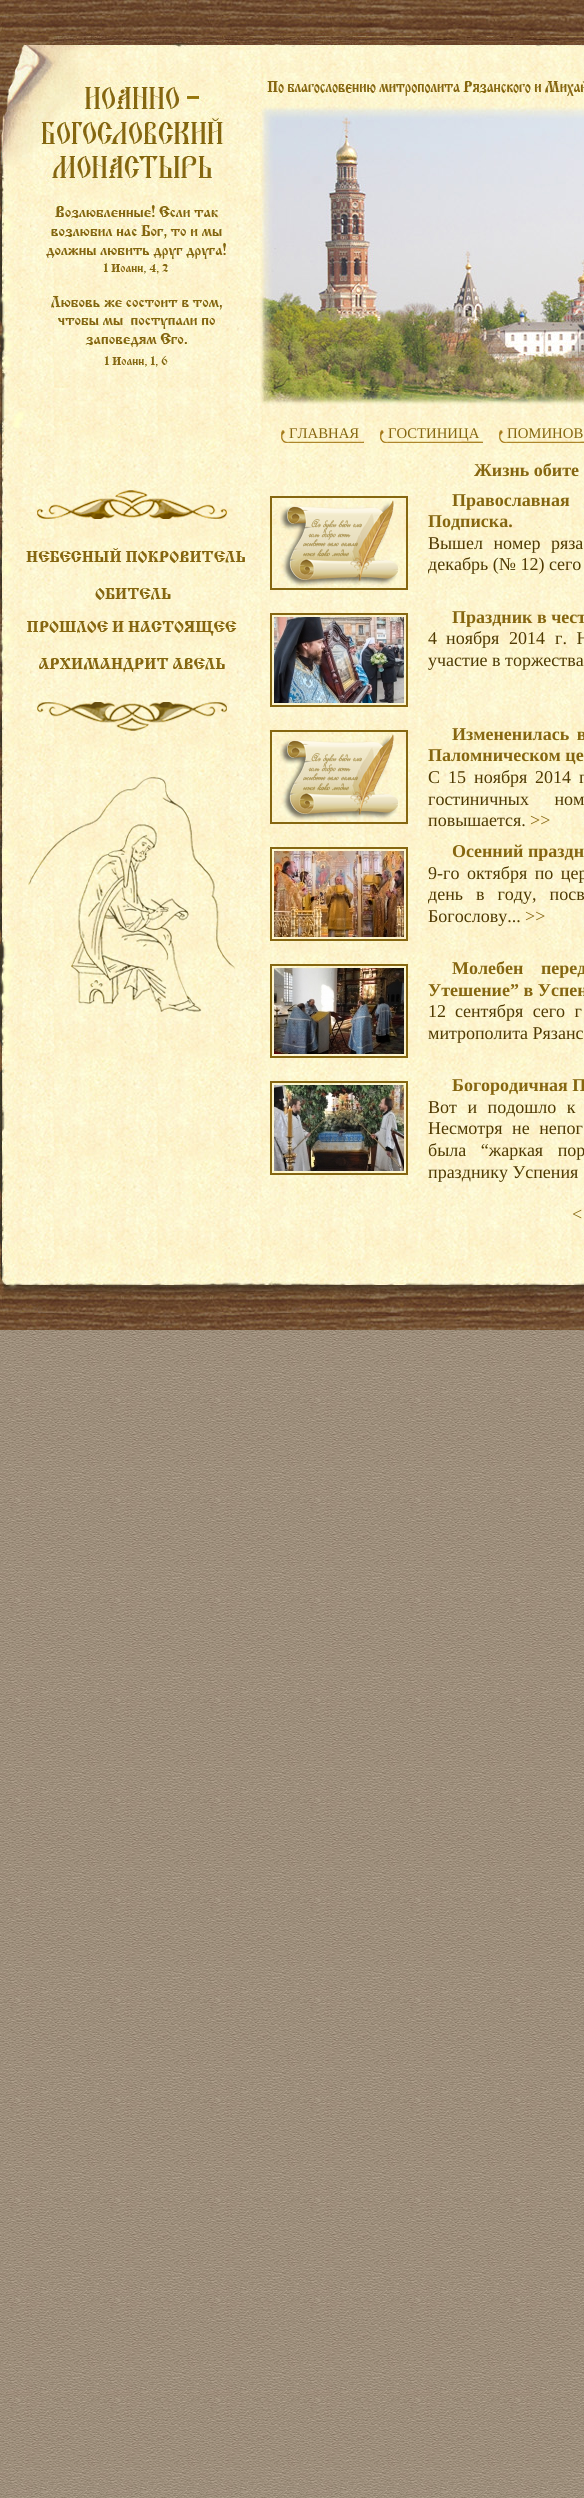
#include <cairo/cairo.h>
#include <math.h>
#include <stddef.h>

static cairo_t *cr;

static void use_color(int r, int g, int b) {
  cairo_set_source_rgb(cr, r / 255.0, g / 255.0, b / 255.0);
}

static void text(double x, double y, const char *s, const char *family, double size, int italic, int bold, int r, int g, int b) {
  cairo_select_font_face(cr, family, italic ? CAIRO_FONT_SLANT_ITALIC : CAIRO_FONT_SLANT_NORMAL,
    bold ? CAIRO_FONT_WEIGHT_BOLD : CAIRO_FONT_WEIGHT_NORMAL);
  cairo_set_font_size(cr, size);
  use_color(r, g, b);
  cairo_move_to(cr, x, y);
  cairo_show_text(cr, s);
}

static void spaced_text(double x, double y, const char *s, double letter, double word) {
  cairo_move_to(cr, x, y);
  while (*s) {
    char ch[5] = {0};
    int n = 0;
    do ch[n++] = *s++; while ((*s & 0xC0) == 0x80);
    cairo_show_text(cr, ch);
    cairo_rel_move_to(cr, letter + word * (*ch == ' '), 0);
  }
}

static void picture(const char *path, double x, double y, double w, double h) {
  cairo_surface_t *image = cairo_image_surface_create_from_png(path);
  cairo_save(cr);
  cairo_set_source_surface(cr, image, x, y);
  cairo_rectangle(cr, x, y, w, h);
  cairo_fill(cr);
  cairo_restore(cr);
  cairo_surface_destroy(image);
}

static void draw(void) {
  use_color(255, 255, 255);
  cairo_paint(cr);
  picture("img_01.png", 0, 1330, 584, 1168);
  picture("img_02.png", 0, 0, 584, 1330);
  picture("img_03.png", 281, 430, 83, 13);
  picture("img_04.png", 380, 430, 103, 13);
  picture("img_05.png", 499, 430, 85, 13);
  picture("img_06.png", 37, 490, 190, 29);
  picture("img_07.png", 26, 548, 219, 15);
  picture("img_08.png", 95, 588, 76, 12);
  picture("img_09.png", 27, 621, 210, 15);
  picture("img_10.png", 39, 658, 186, 14);
  picture("img_11.png", 37, 702, 190, 29);
  picture("img_12.png", 28, 777, 207, 235);
  cairo_rectangle(cr, 271, 497, 136, 92);
  use_color(133, 102, 16);
  cairo_stroke(cr);
  picture("img_13.png", 280, 500, 118, 86);
  cairo_rectangle(cr, 271, 614, 136, 92);
  cairo_stroke(cr);
  picture("img_14.png", 274, 617, 130, 86);
  cairo_rectangle(cr, 271, 731, 136, 92);
  cairo_stroke(cr);
  picture("img_15.png", 280, 734, 118, 86);
  cairo_rectangle(cr, 271, 848, 136, 92);
  cairo_stroke(cr);
  picture("img_16.png", 274, 851, 130, 86);
  cairo_rectangle(cr, 271, 965, 136, 92);
  cairo_stroke(cr);
  picture("img_17.png", 274, 968, 130, 86);
  cairo_rectangle(cr, 271, 1082, 136, 92);
  cairo_stroke(cr);
  picture("img_18.png", 274, 1085, 130, 86);
  text(289, 438, "ГЛАВНАЯ", "Liberation Serif", 14.75, 0, 0, 133, 102, 16);
  text(388, 438, "ГОСТИНИЦА", "Liberation Serif", 14.75, 0, 0, 133, 102, 16);
  text(507, 438, "ПОМИНОВ", "Liberation Serif", 14.75, 0, 0, 133, 102, 16);
  text(474, 476, "Жизнь обите", "Liberation Serif", 18, 0, 1, 133, 102, 16);
  spaced_text(452, 506, "Православная", 0, 19);
  text(428, 527, "Подписка.", "Liberation Serif", 18, 0, 1, 133, 102, 16);
  cairo_select_font_face(cr, "Liberation Serif", CAIRO_FONT_SLANT_NORMAL, CAIRO_FONT_WEIGHT_NORMAL);
  use_color(79, 58, 2);
  spaced_text(428, 549, "Вышел номер ряза", 0, 6);
  text(428, 570, "декабрь (№ 12) сего", "Liberation Serif", 18, 0, 0, 79, 58, 2);
  text(452, 623, "Праздник в чест", "Liberation Serif", 18, 0, 1, 133, 102, 16);
  text(428, 644, "4", "Liberation Serif", 18, 0, 0, 79, 58, 2);
  text(446, 644, "ноября", "Liberation Serif", 18, 0, 0, 79, 58, 2);
  text(509, 644, "2014", "Liberation Serif", 18, 0, 0, 79, 58, 2);
  spaced_text(555, 644, "г. Н", 0, 5);
  text(428, 666, "участие в торжества", "Liberation Serif", 18, 0, 0, 79, 58, 2);
  cairo_select_font_face(cr, "Liberation Serif", CAIRO_FONT_SLANT_NORMAL, CAIRO_FONT_WEIGHT_BOLD);
  use_color(133, 102, 16);
  spaced_text(452, 740, "Измененилась в", 0, 3);
  text(428, 761, "Паломническом це", "Liberation Serif", 18, 0, 1, 133, 102, 16);
  text(428, 783, "С", "Liberation Serif", 18, 0, 0, 79, 58, 2);
  text(448, 783, "15", "Liberation Serif", 18, 0, 0, 79, 58, 2);
  text(474, 783, "ноября", "Liberation Serif", 18, 0, 0, 79, 58, 2);
  text(535, 783, "2014", "Liberation Serif", 18, 0, 0, 79, 58, 2);
  spaced_text(579, 783, "г", 0, 3);
  spaced_text(428, 805, "гостиничных ном", 0, 21);
  text(428, 826, "повышается.", "Liberation Serif", 18, 0, 0, 79, 58, 2);
  text(530, 826, ">>", "Liberation Serif", 18, 0, 0, 133, 102, 16);
  text(452, 857, "Осенний праздн", "Liberation Serif", 18, 0, 1, 133, 102, 16);
  text(428, 879, "9", "Liberation Serif", 18, 0, 0, 79, 58, 2);
  spaced_text(437, 879, "-го октября по цер", 0, 3);
  spaced_text(428, 900, "день в году, посв", 0, 8.5);
  text(428, 922, "Богослову...", "Liberation Serif", 18, 0, 0, 79, 58, 2);
  text(525, 922, ">>", "Liberation Serif", 18, 0, 0, 133, 102, 16);
  cairo_select_font_face(cr, "Liberation Serif", CAIRO_FONT_SLANT_NORMAL, CAIRO_FONT_WEIGHT_BOLD);
  spaced_text(452, 974, "Молебен перед", 0, 13);
  text(428, 996, "Утешение” в Успен", "Liberation Serif", 18, 0, 1, 133, 102, 16);
  text(428, 1017, "12", "Liberation Serif", 18, 0, 0, 79, 58, 2);
  spaced_text(455, 1017, "сентября сего г", 0, 5);
  text(428, 1039, "митрополита Рязанс", "Liberation Serif", 18, 0, 0, 79, 58, 2);
  text(452, 1091, "Богородичная П", "Liberation Serif", 18, 0, 1, 133, 102, 16);
  cairo_select_font_face(cr, "Liberation Serif", CAIRO_FONT_SLANT_NORMAL, CAIRO_FONT_WEIGHT_NORMAL);
  use_color(79, 58, 2);
  spaced_text(428, 1113, "Вот и подошло к", 0, 6);
  spaced_text(428, 1134, "Несмотря не непог", 0, 5);
  spaced_text(428, 1156, "была “жаркая пор", 0, 10);
  text(428, 1178, "празднику Успения", "Liberation Serif", 18, 0, 0, 79, 58, 2);
  text(572, 1220, "<", "Liberation Serif", 18, 0, 0, 133, 102, 16);
}

int main(void) {
  cairo_surface_t *surface = cairo_image_surface_create(CAIRO_FORMAT_RGB24, 584, 2498);
  cr = cairo_create(surface);
  cairo_font_options_t *options = cairo_font_options_create();
  cairo_font_options_set_hint_metrics(options, CAIRO_HINT_METRICS_OFF);
  cairo_font_options_set_hint_style(options, CAIRO_HINT_STYLE_NONE);
  cairo_set_font_options(cr, options);
  cairo_set_miter_limit(cr, 4);
  draw();
  cairo_surface_write_to_png(surface, "out.png");
  cairo_font_options_destroy(options);
  cairo_destroy(cr);
  cairo_surface_destroy(surface);
  return 0;
}
